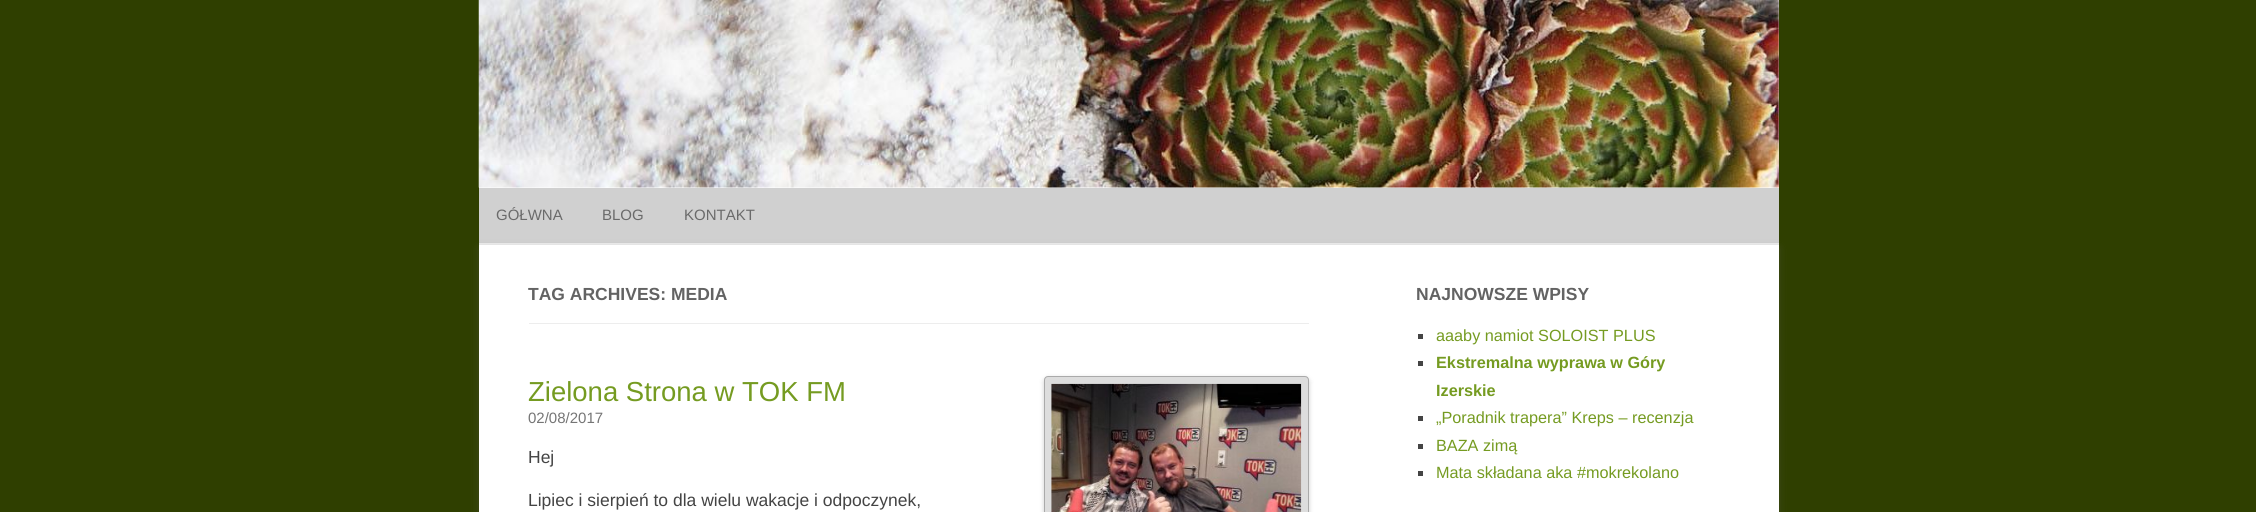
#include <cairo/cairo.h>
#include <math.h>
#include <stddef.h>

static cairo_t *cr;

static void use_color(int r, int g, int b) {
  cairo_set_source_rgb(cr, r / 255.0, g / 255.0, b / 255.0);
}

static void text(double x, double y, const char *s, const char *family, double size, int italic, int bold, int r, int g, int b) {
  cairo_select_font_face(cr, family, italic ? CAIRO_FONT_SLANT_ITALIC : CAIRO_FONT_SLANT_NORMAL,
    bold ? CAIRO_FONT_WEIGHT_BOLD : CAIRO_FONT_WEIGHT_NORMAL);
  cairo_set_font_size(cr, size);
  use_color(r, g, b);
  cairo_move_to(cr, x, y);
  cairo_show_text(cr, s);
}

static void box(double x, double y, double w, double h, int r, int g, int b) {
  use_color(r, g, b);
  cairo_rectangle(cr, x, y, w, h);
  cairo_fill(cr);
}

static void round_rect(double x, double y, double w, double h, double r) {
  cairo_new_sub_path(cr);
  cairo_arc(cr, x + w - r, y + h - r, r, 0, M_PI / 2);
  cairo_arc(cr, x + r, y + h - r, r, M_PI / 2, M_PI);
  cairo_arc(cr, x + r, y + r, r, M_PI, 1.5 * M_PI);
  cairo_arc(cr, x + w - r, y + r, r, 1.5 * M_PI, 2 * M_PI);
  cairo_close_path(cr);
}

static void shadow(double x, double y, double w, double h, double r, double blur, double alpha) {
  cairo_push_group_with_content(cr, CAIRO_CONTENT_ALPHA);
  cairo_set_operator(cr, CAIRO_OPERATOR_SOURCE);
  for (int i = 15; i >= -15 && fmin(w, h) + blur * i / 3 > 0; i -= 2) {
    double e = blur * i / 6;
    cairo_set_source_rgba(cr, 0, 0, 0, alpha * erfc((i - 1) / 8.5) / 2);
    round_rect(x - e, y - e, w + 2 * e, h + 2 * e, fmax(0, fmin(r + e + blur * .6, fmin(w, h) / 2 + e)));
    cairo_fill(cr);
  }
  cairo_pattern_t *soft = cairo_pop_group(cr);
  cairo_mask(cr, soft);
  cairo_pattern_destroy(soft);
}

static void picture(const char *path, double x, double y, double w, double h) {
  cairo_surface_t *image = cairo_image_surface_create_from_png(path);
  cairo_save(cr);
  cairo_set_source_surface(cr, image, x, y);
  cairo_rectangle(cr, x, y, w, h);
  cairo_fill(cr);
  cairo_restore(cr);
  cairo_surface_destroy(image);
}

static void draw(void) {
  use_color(47, 63, 0);
  cairo_paint(cr);
  box(479, 0, 1300, 188, 255, 255, 255);
  picture("img_01.png", 478, 0, 1301, 188);
  box(479, 188, 1300, 55, 208, 208, 208);
  box(479, 243, 1300, 2, 237, 237, 237);
  use_color(100, 100, 100);
  shadow(479, 248, 1300, 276, 0, 4, 0.3);
  box(479, 245, 1300, 267, 255, 255, 255);
  box(529, 323, 780, 1, 237, 237, 237);
  use_color(0, 0, 0);
  shadow(1044, 378, 265, 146, 4, 2.5, 0.2);
  use_color(221, 221, 221);
  round_rect(1044.5, 376.5, 264, 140, 3.5);
  cairo_fill_preserve(cr);
  use_color(170, 170, 170);
  cairo_set_line_width(cr, 1);
  cairo_stroke(cr);
  picture("img_02.png", 1051, 383, 251, 129);
  box(1418, 334, 5, 5, 68, 68, 68);
  box(1418, 361, 5, 5, 68, 68, 68);
  box(1418, 416, 5, 5, 68, 68, 68);
  box(1418, 444, 5, 5, 68, 68, 68);
  box(1418, 471, 5, 5, 68, 68, 68);
  text(496, 220, "GÓŁWNA", "Liberation Sans", 15, 0, 0, 106, 106, 106);
  text(602, 220, "BLOG", "Liberation Sans", 15, 0, 0, 106, 106, 106);
  text(684, 220, "KONTAKT", "Liberation Sans", 15, 0, 0, 106, 106, 106);
  text(528, 300, "TAG ARCHIVES: MEDIA", "Liberation Sans", 17.5, 0, 1, 99, 99, 99);
  text(528, 401, "Zielona Strona w TOK FM", "Liberation Sans", 27.5, 0, 0, 117, 155, 33);
  text(528, 423, "02/08/2017", "Liberation Sans", 15, 0, 0, 117, 117, 117);
  text(528, 463, "Hej", "Liberation Sans", 17.5, 0, 0, 68, 68, 68);
  text(528, 506, "Lipiec i sierpień to dla wielu wakacje i odpoczynek,", "Liberation Sans", 17.5, 0, 0, 68, 68, 68);
  text(1416, 300, "NAJNOWSZE WPISY", "Liberation Sans", 17.5, 0, 1, 99, 99, 99);
  text(1436, 341, "aaaby namiot SOLOIST PLUS", "Liberation Sans", 16.25, 0, 0, 117, 155, 33);
  text(1436, 368, "Ekstremalna wyprawa w Góry", "Liberation Sans", 16.25, 0, 1, 117, 155, 33);
  text(1436, 396, "Izerskie", "Liberation Sans", 16.25, 0, 1, 117, 155, 33);
  text(1436, 423, "„Poradnik trapera” Kreps – recenzja", "Liberation Sans", 16.25, 0, 0, 117, 155, 33);
  text(1436, 451, "BAZA zimą", "Liberation Sans", 16.25, 0, 0, 117, 155, 33);
  text(1436, 478, "Mata składana aka #mokrekolano", "Liberation Sans", 16.25, 0, 0, 117, 155, 33);
}

int main(void) {
  cairo_surface_t *surface = cairo_image_surface_create(CAIRO_FORMAT_RGB24, 2256, 512);
  cr = cairo_create(surface);
  cairo_font_options_t *options = cairo_font_options_create();
  cairo_font_options_set_hint_metrics(options, CAIRO_HINT_METRICS_OFF);
  cairo_font_options_set_hint_style(options, CAIRO_HINT_STYLE_NONE);
  cairo_set_font_options(cr, options);
  cairo_set_miter_limit(cr, 4);
  draw();
  cairo_surface_write_to_png(surface, "out.png");
  cairo_font_options_destroy(options);
  cairo_destroy(cr);
  cairo_surface_destroy(surface);
  return 0;
}
